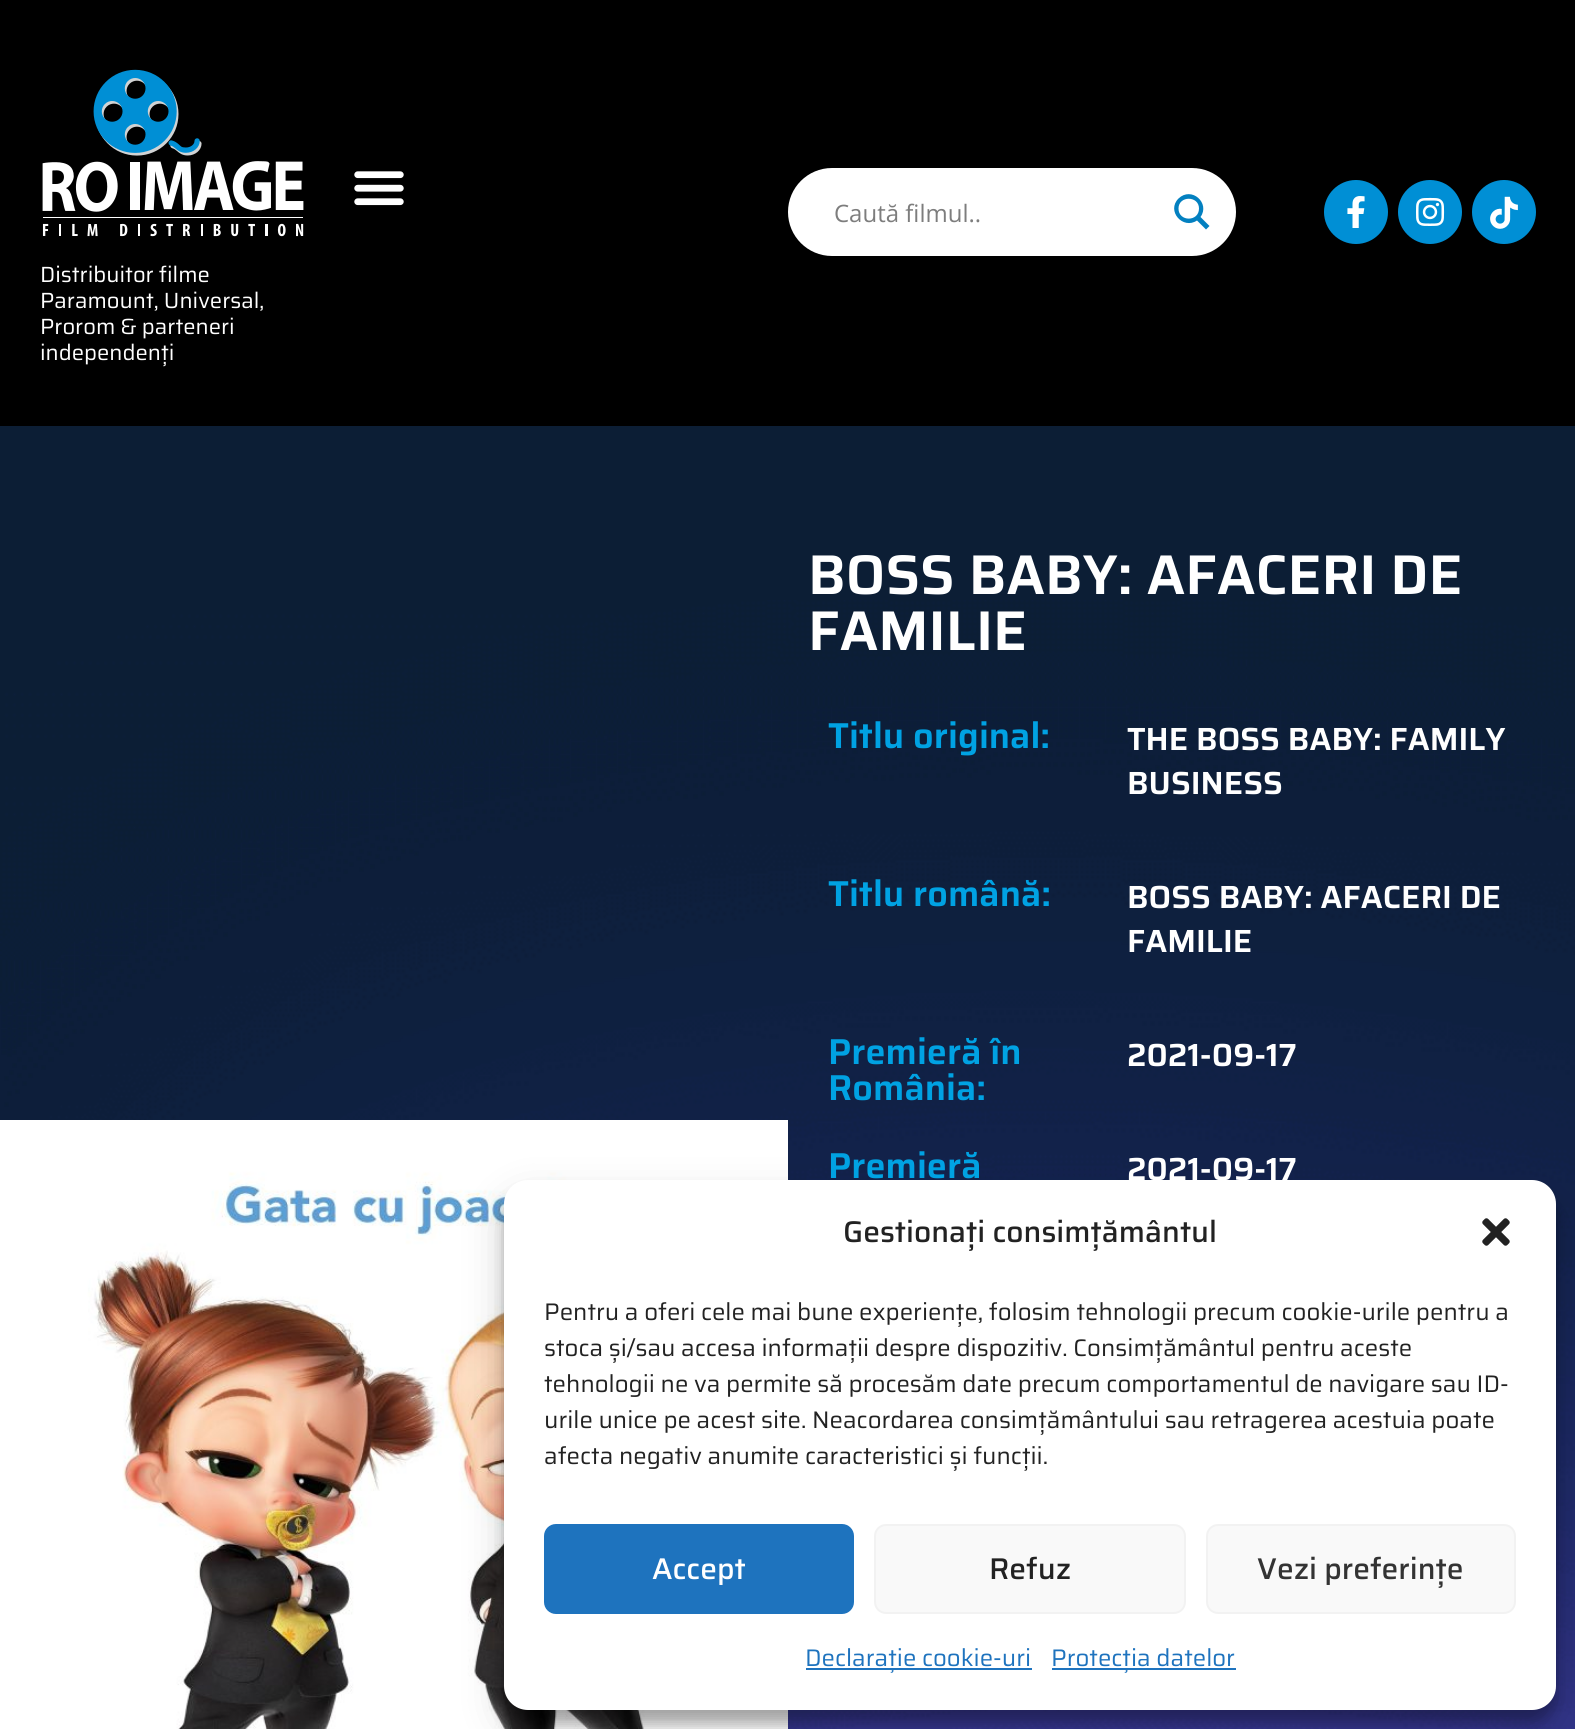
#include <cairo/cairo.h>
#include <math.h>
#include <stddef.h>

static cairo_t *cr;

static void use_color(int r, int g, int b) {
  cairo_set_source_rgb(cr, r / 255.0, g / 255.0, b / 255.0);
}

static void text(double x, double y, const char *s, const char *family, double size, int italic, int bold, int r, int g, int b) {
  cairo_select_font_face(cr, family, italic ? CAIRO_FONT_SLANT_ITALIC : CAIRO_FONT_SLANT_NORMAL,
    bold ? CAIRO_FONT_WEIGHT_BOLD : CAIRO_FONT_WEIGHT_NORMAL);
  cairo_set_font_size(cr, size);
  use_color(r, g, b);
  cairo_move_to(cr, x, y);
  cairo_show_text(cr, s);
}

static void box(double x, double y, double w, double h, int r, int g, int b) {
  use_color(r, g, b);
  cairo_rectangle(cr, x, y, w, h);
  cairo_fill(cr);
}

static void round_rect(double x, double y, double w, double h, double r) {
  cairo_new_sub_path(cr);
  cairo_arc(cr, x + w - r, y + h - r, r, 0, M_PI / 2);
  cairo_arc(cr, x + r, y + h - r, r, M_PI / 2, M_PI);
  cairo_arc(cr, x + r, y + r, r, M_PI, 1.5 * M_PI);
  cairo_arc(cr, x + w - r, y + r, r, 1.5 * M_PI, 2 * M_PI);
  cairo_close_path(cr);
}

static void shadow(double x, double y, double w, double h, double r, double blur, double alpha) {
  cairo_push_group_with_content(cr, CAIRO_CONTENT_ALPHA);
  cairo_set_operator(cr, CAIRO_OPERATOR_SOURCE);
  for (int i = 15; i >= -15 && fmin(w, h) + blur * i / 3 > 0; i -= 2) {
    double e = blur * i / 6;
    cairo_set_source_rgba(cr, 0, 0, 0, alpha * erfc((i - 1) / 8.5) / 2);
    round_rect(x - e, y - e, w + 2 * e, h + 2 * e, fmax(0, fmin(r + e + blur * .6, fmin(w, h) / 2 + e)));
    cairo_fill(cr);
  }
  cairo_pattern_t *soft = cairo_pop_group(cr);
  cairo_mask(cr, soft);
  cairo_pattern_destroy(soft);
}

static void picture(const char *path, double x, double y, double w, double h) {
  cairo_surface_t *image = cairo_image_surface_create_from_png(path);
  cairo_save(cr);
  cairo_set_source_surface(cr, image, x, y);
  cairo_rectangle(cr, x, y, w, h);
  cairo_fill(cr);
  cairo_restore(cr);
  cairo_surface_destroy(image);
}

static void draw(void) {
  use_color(12, 30, 53);
  cairo_paint(cr);
  box(0, 0, 1575, 426, 0, 0, 0);
  picture("img_01.png", 354, 171, 50, 35);
  use_color(255, 255, 255);
  round_rect(788, 168, 448, 88, 44);
  cairo_fill(cr);
  use_color(3, 128, 192);
  cairo_new_path(cr);
  cairo_move_to(cr, 1209.5, 226);
  cairo_line_to(cr, 1200.5, 217);
  cairo_curve_to(cr, 1210.5, 203, 1191.5, 186, 1178.5, 198.5);
  cairo_curve_to(cr, 1166, 211, 1183, 230, 1197, 220.5);
  cairo_line_to(cr, 1206, 229.5);
  cairo_close_path(cr);
  cairo_move_to(cr, 1178.5, 208.5);
  cairo_curve_to(cr, 1178.5, 195.5, 1199, 195.5, 1199, 208.5);
  cairo_curve_to(cr, 1199, 222, 1178.5, 222, 1178.5, 208.5);
  cairo_close_path(cr);
  cairo_fill(cr);
  use_color(0, 143, 213);
  cairo_arc(cr, 1356, 212, 32, 0, 2 * M_PI);
  cairo_fill(cr);
  picture("img_02.png", 1347, 196, 18, 32);
  cairo_arc(cr, 1430, 212, 32, 0, 2 * M_PI);
  cairo_fill(cr);
  picture("img_03.png", 1416, 197, 29, 29);
  cairo_arc(cr, 1504, 212, 32, 0, 2 * M_PI);
  cairo_fill(cr);
  picture("img_04.png", 1490, 196, 28, 33);
  picture("img_05.png", 42, 69, 262, 168);
  picture("img_06.png", 0, 600, 1575, 1129);
  picture("img_07.png", 0, 1120, 788, 609);
  use_color(0, 0, 0);
  shadow(504, 1192, 1052, 530, 24, 6, 0.23);
  shadow(504, 1200, 1052, 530, 24, 20, 0.19);
  use_color(255, 255, 255);
  round_rect(504, 1180, 1052, 530, 24);
  cairo_fill(cr);
  picture("img_08.png", 1482, 1218, 28, 28);
  use_color(30, 115, 190);
  round_rect(545, 1525, 308, 88, 11);
  cairo_fill_preserve(cr);
  cairo_stroke(cr);
  use_color(249, 249, 249);
  round_rect(875, 1525, 310, 88, 11);
  cairo_fill_preserve(cr);
  use_color(242, 242, 242);
  cairo_stroke(cr);
  use_color(249, 249, 249);
  round_rect(1207, 1525, 308, 88, 11);
  cairo_fill_preserve(cr);
  use_color(242, 242, 242);
  cairo_stroke(cr);
  box(806, 1668, 226, 2, 30, 115, 190);
  box(1052, 1668, 184, 2, 30, 115, 190);
  text(834, 222, "Caută filmul..", "Open Sans", 24, 0, 0, 125, 125, 125);
  text(40, 282, "Distribuitor filme", "Saira", 22, 0, 0, 255, 255, 255);
  text(40, 308, "Paramount, Universal,", "Saira", 22, 0, 0, 255, 255, 255);
  text(40, 334, "Prorom & parteneri", "Saira", 22, 0, 0, 255, 255, 255);
  text(40, 360, "independenți", "Saira", 22, 0, 0, 255, 255, 255);
  text(808, 594, "BOSS BABY: AFACERI DE", "Saira SemiBold", 56, 0, 0, 255, 255, 255);
  text(808, 650, "FAMILIE", "Saira SemiBold", 56, 0, 0, 255, 255, 255);
  text(828, 748, "Titlu original:", "Saira SemiBold", 36, 0, 0, 0, 162, 227);
  text(1127, 750, "THE BOSS BABY: FAMILY", "Saira SemiBold", 32, 0, 0, 255, 255, 255);
  text(1127, 794, "BUSINESS", "Saira SemiBold", 32, 0, 0, 255, 255, 255);
  text(828, 906, "Titlu română:", "Saira SemiBold", 36, 0, 0, 0, 162, 227);
  text(1127, 908, "BOSS BABY: AFACERI DE", "Saira SemiBold", 32, 0, 0, 255, 255, 255);
  text(1127, 952, "FAMILIE", "Saira SemiBold", 32, 0, 0, 255, 255, 255);
  text(828, 1064, "Premieră în", "Saira SemiBold", 36, 0, 0, 0, 162, 227);
  text(828, 1100, "România:", "Saira SemiBold", 36, 0, 0, 0, 162, 227);
  text(1127, 1066, "2021-09-17", "Saira SemiBold", 32, 0, 0, 255, 255, 255);
  text(828, 1178, "Premieră", "Saira SemiBold", 36, 0, 0, 0, 162, 227);
  text(1127, 1180, "2021-09-17", "Saira SemiBold", 32, 0, 0, 255, 255, 255);
  text(843, 1242, "Gestionați consimțământul", "Saira Medium", 30, 0, 0, 34, 34, 34);
  text(544, 1320, "Pentru a oferi cele mai bune experiențe, folosim tehnologii precum cookie-urile pentru a", "Saira", 24, 0, 0, 34, 34, 34);
  text(544, 1356, "stoca și/sau accesa informații despre dispozitiv. Consimțământul pentru aceste", "Saira", 24, 0, 0, 34, 34, 34);
  text(544, 1392, "tehnologii ne va permite să procesăm date precum comportamentul de navigare sau ID-", "Saira", 24, 0, 0, 34, 34, 34);
  text(544, 1428, "urile unice pe acest site. Neacordarea consimțământului sau retragerea acestuia poate", "Saira", 24, 0, 0, 34, 34, 34);
  text(544, 1464, "afecta negativ anumite caracteristici și funcții.", "Saira", 24, 0, 0, 34, 34, 34);
  text(652, 1579, "Accept", "Saira Medium", 30, 0, 0, 255, 255, 255);
  text(989, 1579, "Refuz", "Saira Medium", 30, 0, 0, 34, 34, 34);
  text(1257, 1579, "Vezi preferințe", "Saira Medium", 30, 0, 0, 51, 51, 51);
  text(805, 1666, "Declarație cookie-uri", "Saira", 24, 0, 0, 30, 115, 190);
  text(1051, 1666, "Protecția datelor", "Saira", 24, 0, 0, 30, 115, 190);
}

int main(void) {
  cairo_surface_t *surface = cairo_image_surface_create(CAIRO_FORMAT_RGB24, 1575, 1729);
  cr = cairo_create(surface);
  cairo_font_options_t *options = cairo_font_options_create();
  cairo_font_options_set_hint_metrics(options, CAIRO_HINT_METRICS_OFF);
  cairo_font_options_set_hint_style(options, CAIRO_HINT_STYLE_NONE);
  cairo_set_font_options(cr, options);
  cairo_set_miter_limit(cr, 4);
  draw();
  cairo_surface_write_to_png(surface, "out.png");
  cairo_font_options_destroy(options);
  cairo_destroy(cr);
  cairo_surface_destroy(surface);
  return 0;
}
